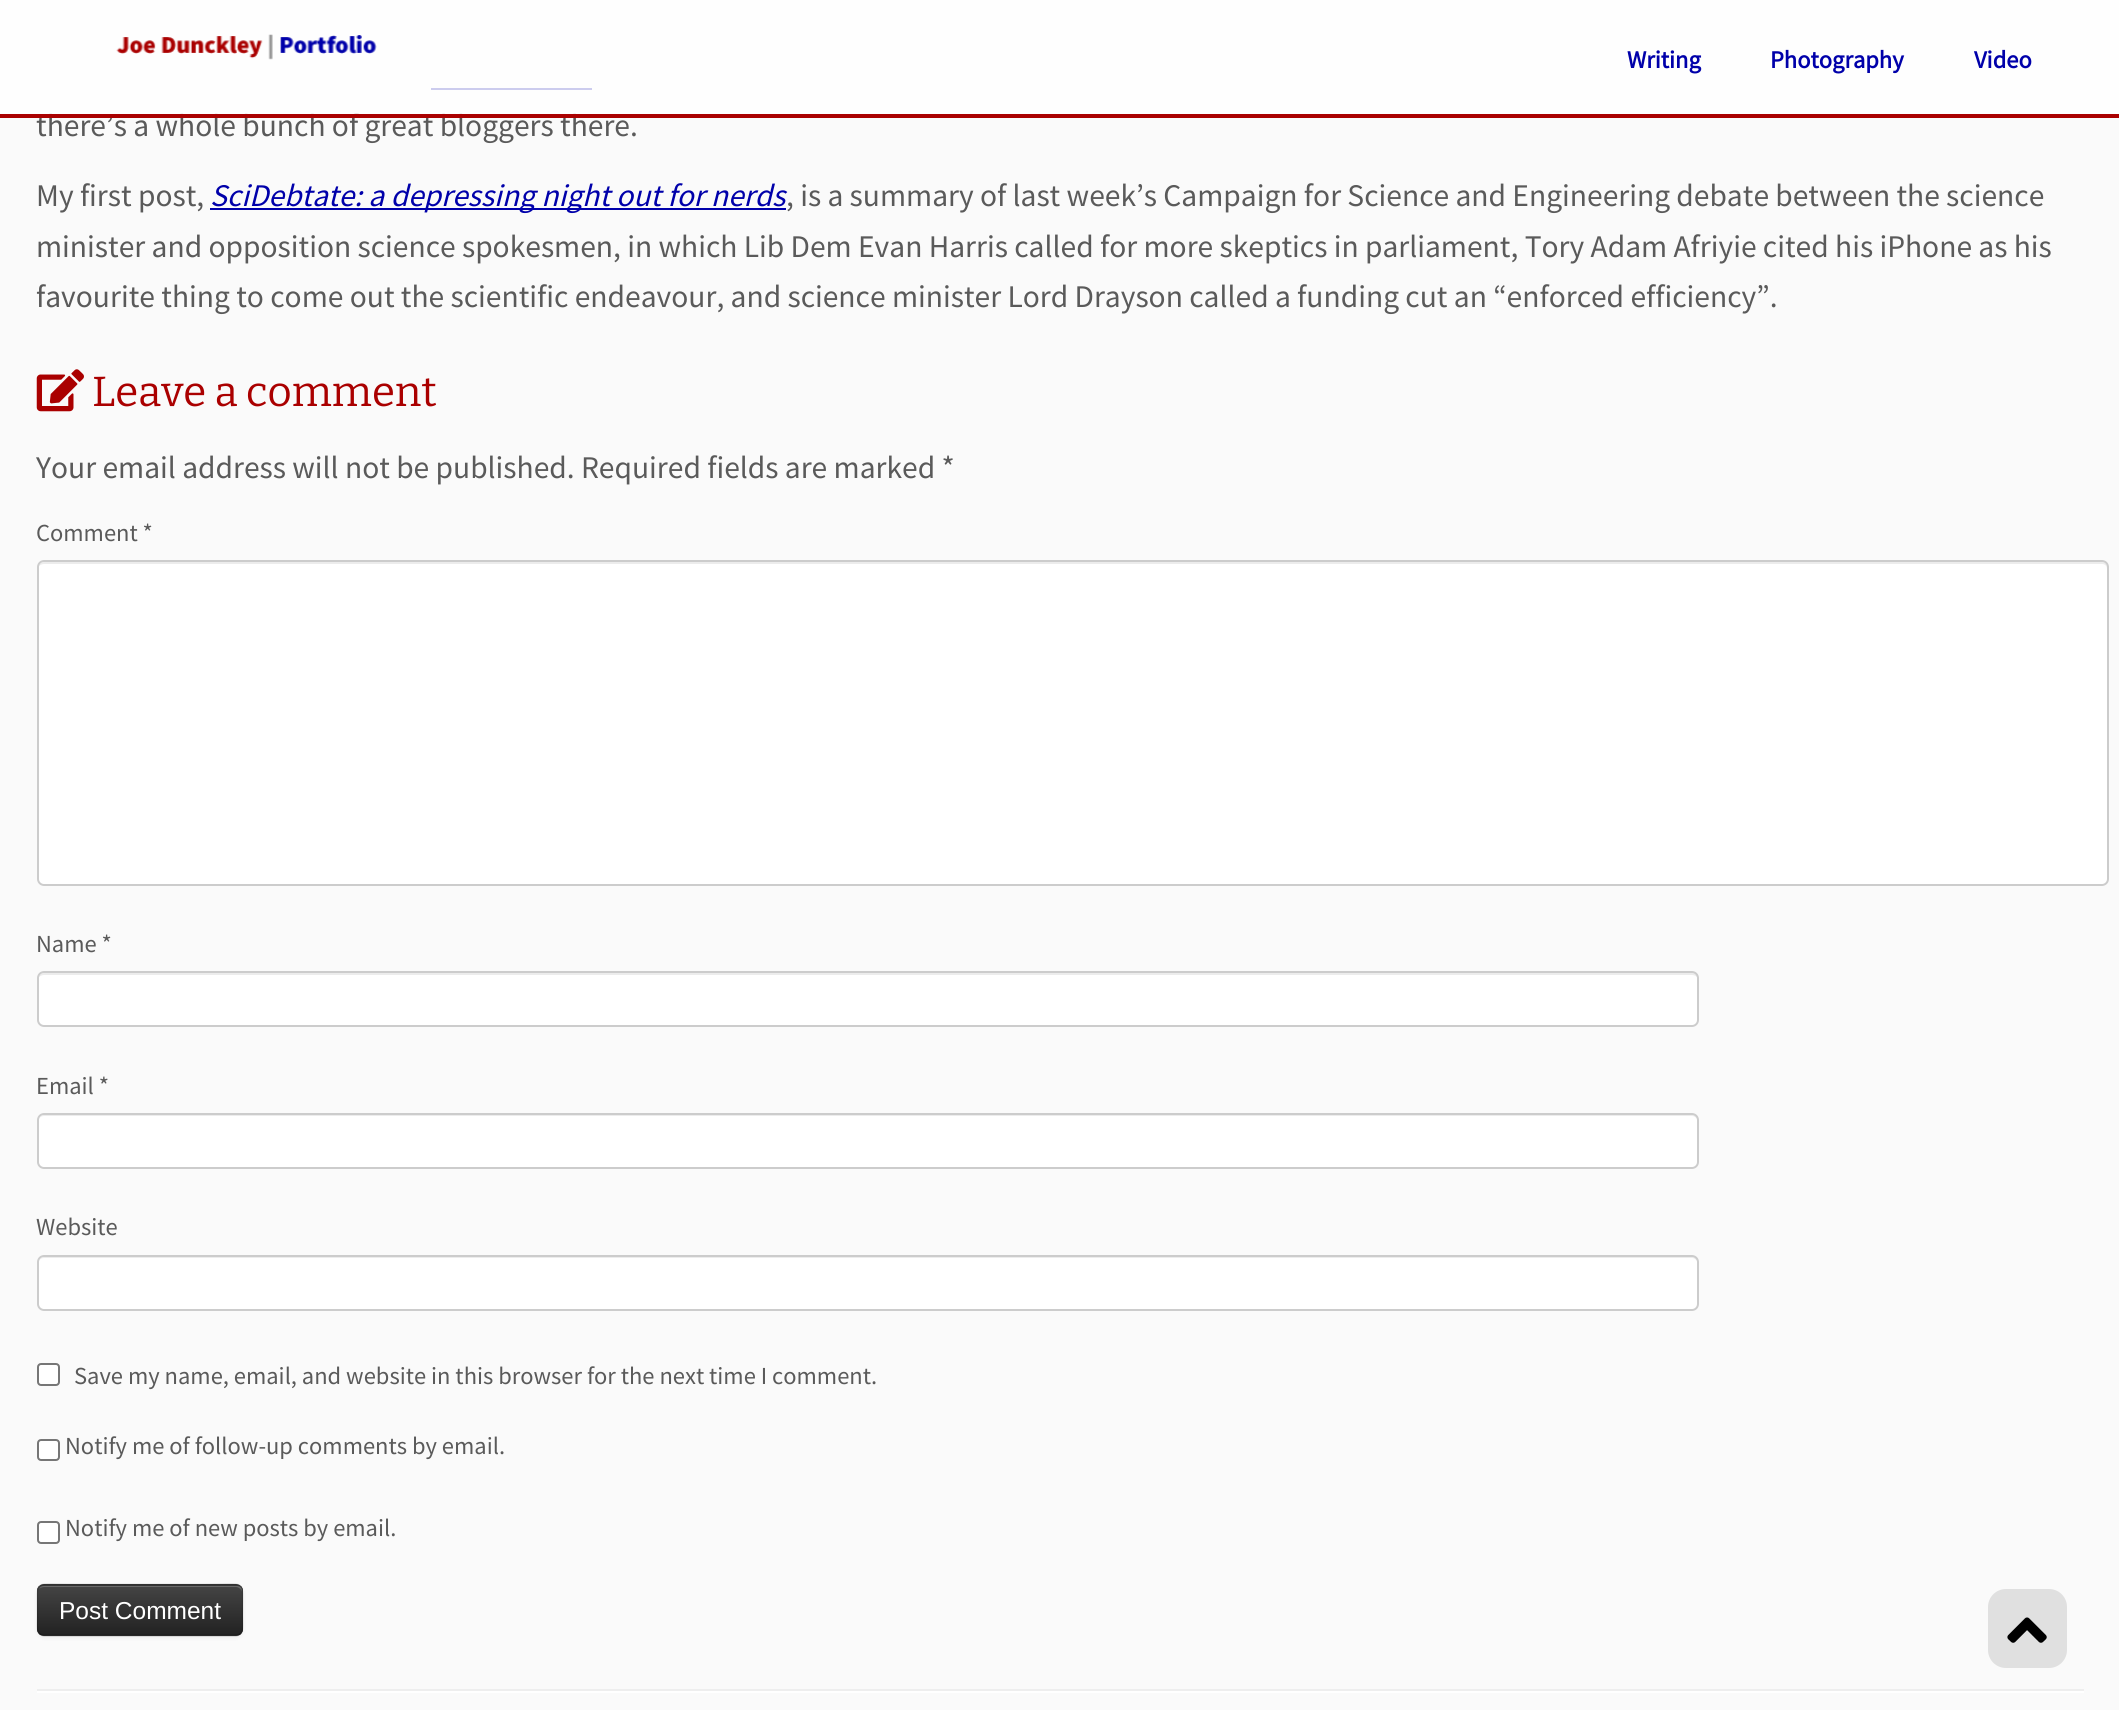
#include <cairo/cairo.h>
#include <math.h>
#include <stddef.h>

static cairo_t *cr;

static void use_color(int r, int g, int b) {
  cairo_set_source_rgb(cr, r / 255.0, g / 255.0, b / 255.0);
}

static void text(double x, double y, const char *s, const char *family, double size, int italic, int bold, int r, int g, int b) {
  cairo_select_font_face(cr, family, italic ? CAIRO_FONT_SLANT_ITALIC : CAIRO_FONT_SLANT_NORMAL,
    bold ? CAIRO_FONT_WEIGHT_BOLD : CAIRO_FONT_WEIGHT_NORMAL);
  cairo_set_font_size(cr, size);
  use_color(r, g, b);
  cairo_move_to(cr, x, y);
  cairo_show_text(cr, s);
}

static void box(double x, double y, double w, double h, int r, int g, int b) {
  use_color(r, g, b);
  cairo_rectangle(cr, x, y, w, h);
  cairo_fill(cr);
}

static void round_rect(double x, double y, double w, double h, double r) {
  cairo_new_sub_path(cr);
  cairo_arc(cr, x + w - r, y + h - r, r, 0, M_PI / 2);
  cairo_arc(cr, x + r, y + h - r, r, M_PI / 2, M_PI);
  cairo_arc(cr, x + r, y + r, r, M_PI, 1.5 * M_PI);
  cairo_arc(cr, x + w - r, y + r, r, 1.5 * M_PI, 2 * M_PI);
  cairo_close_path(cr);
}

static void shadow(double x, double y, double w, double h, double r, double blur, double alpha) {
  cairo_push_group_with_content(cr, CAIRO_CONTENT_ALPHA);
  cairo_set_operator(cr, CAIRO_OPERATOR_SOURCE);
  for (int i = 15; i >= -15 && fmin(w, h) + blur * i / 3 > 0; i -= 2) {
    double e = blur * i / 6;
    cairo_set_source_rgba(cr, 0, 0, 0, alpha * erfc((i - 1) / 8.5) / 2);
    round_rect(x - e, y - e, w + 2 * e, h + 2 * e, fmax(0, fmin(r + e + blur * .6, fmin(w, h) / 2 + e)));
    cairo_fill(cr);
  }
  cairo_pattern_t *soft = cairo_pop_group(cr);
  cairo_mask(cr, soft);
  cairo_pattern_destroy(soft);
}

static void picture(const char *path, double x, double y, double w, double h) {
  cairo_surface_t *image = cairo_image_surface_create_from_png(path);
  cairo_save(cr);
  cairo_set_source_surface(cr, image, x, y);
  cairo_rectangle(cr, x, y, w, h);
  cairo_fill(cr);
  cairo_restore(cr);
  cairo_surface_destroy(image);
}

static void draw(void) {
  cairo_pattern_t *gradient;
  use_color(250, 250, 250);
  cairo_paint(cr);
  box(431, 88, 161, 2, 0, 0, 170);
  box(210, 208, 576, 2, 0, 0, 170);
  picture("img_02.png", 36, 369, 48, 43);
  use_color(255, 255, 255);
  round_rect(37, 560, 2072, 326, 7);
  cairo_fill(cr);
  use_color(236, 236, 236);
  cairo_new_path(cr);
  cairo_move_to(cr, 44, 564);
  cairo_line_to(cr, 2102, 564);
  cairo_curve_to(cr, 2105, 564, 2107, 566, 2107, 569);
  cairo_line_to(cr, 2107, 567);
  cairo_curve_to(cr, 2107, 564, 2105, 562, 2102, 562);
  cairo_line_to(cr, 44, 562);
  cairo_curve_to(cr, 42, 562, 39, 564, 39, 566);
  cairo_curve_to(cr, 40, 565, 42, 564, 44, 564);
  cairo_close_path(cr);
  cairo_fill(cr);
  round_rect(38, 561, 2070, 324, 6);
  use_color(204, 204, 204);
  cairo_stroke(cr);
  use_color(255, 255, 255);
  round_rect(37, 971, 1662, 56, 7);
  cairo_fill(cr);
  use_color(236, 236, 236);
  cairo_new_path(cr);
  cairo_move_to(cr, 44, 975);
  cairo_line_to(cr, 1692, 975);
  cairo_curve_to(cr, 1695, 975, 1698, 977, 1698, 980);
  cairo_line_to(cr, 1698, 978);
  cairo_curve_to(cr, 1698, 975, 1696, 973, 1693, 973);
  cairo_line_to(cr, 44, 973);
  cairo_curve_to(cr, 42, 973, 39, 975, 39, 977);
  cairo_curve_to(cr, 40, 976, 42, 975, 44, 975);
  cairo_close_path(cr);
  cairo_fill(cr);
  round_rect(38, 972, 1660, 54, 6);
  use_color(204, 204, 204);
  cairo_stroke(cr);
  use_color(255, 255, 255);
  round_rect(37, 1113, 1662, 56, 7);
  cairo_fill(cr);
  use_color(236, 236, 236);
  cairo_new_path(cr);
  cairo_move_to(cr, 44, 1116);
  cairo_line_to(cr, 1692, 1116);
  cairo_curve_to(cr, 1695, 1116, 1698, 1119, 1698, 1122);
  cairo_line_to(cr, 1698, 1120);
  cairo_curve_to(cr, 1698, 1117, 1696, 1115, 1693, 1115);
  cairo_line_to(cr, 44, 1115);
  cairo_curve_to(cr, 42, 1115, 40, 1117, 39, 1119);
  cairo_curve_to(cr, 40, 1117, 42, 1116, 44, 1116);
  cairo_close_path(cr);
  cairo_fill(cr);
  round_rect(38, 1114, 1660, 54, 6);
  use_color(204, 204, 204);
  cairo_stroke(cr);
  use_color(255, 255, 255);
  round_rect(37, 1255, 1662, 56, 7);
  cairo_fill(cr);
  use_color(236, 236, 236);
  cairo_new_path(cr);
  cairo_move_to(cr, 44, 1258);
  cairo_line_to(cr, 1692, 1258);
  cairo_curve_to(cr, 1695, 1258, 1698, 1261, 1698, 1264);
  cairo_line_to(cr, 1698, 1262);
  cairo_curve_to(cr, 1698, 1259, 1696, 1257, 1693, 1257);
  cairo_line_to(cr, 44, 1257);
  cairo_curve_to(cr, 42, 1257, 40, 1259, 39, 1261);
  cairo_curve_to(cr, 40, 1259, 42, 1258, 44, 1258);
  cairo_close_path(cr);
  cairo_fill(cr);
  round_rect(38, 1256, 1660, 54, 6);
  use_color(204, 204, 204);
  cairo_stroke(cr);
  use_color(255, 255, 255);
  round_rect(38, 1364, 21, 21, 3);
  cairo_fill_preserve(cr);
  use_color(118, 118, 118);
  cairo_stroke(cr);
  use_color(255, 255, 255);
  round_rect(38, 1440, 21, 20, 3);
  cairo_fill_preserve(cr);
  use_color(118, 118, 118);
  cairo_stroke(cr);
  use_color(255, 255, 255);
  round_rect(38, 1522, 21, 21, 3);
  cairo_fill_preserve(cr);
  use_color(118, 118, 118);
  cairo_stroke(cr);
  use_color(0, 0, 0);
  shadow(37, 1586, 206, 52, 7, 2, 0.05);
  use_color(54, 54, 54);
  round_rect(37, 1584, 206, 52, 7);
  cairo_fill(cr);
  cairo_save(cr);
  round_rect(37, 1584, 206, 52, 7);
  cairo_clip(cr);
  gradient = cairo_pattern_create_linear(140, 1586, 140, 1635);
  cairo_pattern_add_color_stop_rgba(gradient, 0, 0.267, 0.267, 0.267, 1);
  cairo_pattern_add_color_stop_rgba(gradient, 1, 0.133, 0.133, 0.133, 1);
  cairo_set_source(cr, gradient);
  cairo_pattern_destroy(gradient);
  cairo_rectangle(cr, 37, 1586, 206, 49);
  cairo_fill(cr);
  cairo_restore(cr);
  use_color(105, 105, 105);
  cairo_new_path(cr);
  cairo_move_to(cr, 44, 1587);
  cairo_line_to(cr, 236, 1587);
  cairo_curve_to(cr, 239, 1587, 242, 1590, 242, 1592);
  cairo_line_to(cr, 242, 1591);
  cairo_curve_to(cr, 242, 1588, 240, 1586, 237, 1586);
  cairo_line_to(cr, 44, 1586);
  cairo_curve_to(cr, 42, 1586, 40, 1587, 39, 1589);
  cairo_curve_to(cr, 40, 1588, 42, 1587, 44, 1587);
  cairo_close_path(cr);
  cairo_fill(cr);
  cairo_new_path(cr);
  cairo_move_to(cr, 240.5, 1633.5);
  cairo_curve_to(cr, 239.5, 1634.5, 238, 1635.5, 236, 1635.5);
  cairo_line_to(cr, 44, 1635.5);
  cairo_curve_to(cr, 42, 1635.5, 40.5, 1634.5, 39.5, 1633.5);
  cairo_set_source_rgba(cr, 0, 0, 0, 0.25);
  cairo_set_line_width(cr, 1.8);
  cairo_stroke(cr);
  cairo_new_path(cr);
  cairo_move_to(cr, 39.5, 1633.5);
  cairo_curve_to(cr, 36, 1630, 37.5, 1620.5, 37.5, 1616.5);
  cairo_curve_to(cr, 37.5, 1577, 32, 1584.5, 76, 1584.5);
  cairo_line_to(cr, 204, 1584.5);
  cairo_curve_to(cr, 248, 1584.5, 242.5, 1577, 242.5, 1616.5);
  cairo_curve_to(cr, 242.5, 1620.5, 244, 1630, 240.5, 1633.5);
  cairo_set_source_rgba(cr, 0, 0, 0, 0.1);
  cairo_stroke(cr);
  box(37, 1689, 2047, 2, 238, 238, 238);
  box(37, 1691, 2047, 2, 255, 255, 255);
  use_color(224, 224, 224);
  round_rect(1988, 1589, 79, 79, 18);
  cairo_fill(cr);
  picture("img_03.png", 2007, 1617, 40, 26);
  text(36, 136, "there’s a whole bunch of great bloggers there.", "Source Sans Pro", 31.5, 0, 0, 90, 90, 90);
  cairo_set_source_rgba(cr, 1, 1, 1, 0.8);
  cairo_rectangle(cr, 0, 0, 2119, 114);
  cairo_fill(cr);
  text(1974, 68, "Video", "Source Sans Pro", 24.5, 0, 1, 0, 0, 170);
  text(1770, 68, "Photography", "Source Sans Pro", 24.5, 0, 1, 0, 0, 170);
  text(1627, 68, "Writing", "Source Sans Pro", 24.5, 0, 1, 0, 0, 170);
  picture("img_01.png", 116, 34, 261, 26);
  box(0, 114, 2119, 4, 170, 0, 0);
  text(36, 206, "My first post,", "Source Sans Pro", 31.5, 0, 0, 90, 90, 90);
  text(210, 206, "SciDebtate: a depressing night out for nerds", "Source Sans Pro", 31.5, 1, 0, 0, 0, 170);
  text(786, 206, ", is a summary of last week’s Campaign for Science and Engineering debate between the science", "Source Sans Pro", 31.5, 0, 0, 90, 90, 90);
  text(36, 257, "minister and opposition science spokesmen, in which Lib Dem Evan Harris called for more skeptics in parliament, Tory Adam Afriyie cited his iPhone as his", "Source Sans Pro", 31.5, 0, 0, 90, 90, 90);
  text(36, 307, "favourite thing to come out the scientific endeavour, and science minister Lord Drayson called a funding cut an “enforced efficiency”.", "Source Sans Pro", 31.5, 0, 0, 90, 90, 90);
  text(92, 406, "Leave a comment", "Bitter Thin", 42, 0, 0, 170, 0, 0);
  text(36, 478, "Your email address will not be published. Required fields are marked *", "Source Sans Pro", 31.5, 0, 0, 90, 90, 90);
  text(36, 541, "Comment *", "Source Sans Pro", 24.5, 0, 0, 90, 90, 90);
  text(36, 952, "Name *", "Source Sans Pro", 24.5, 0, 0, 90, 90, 90);
  text(36, 1094, "Email *", "Source Sans Pro", 24.5, 0, 0, 90, 90, 90);
  text(36, 1235, "Website", "Source Sans Pro", 24.5, 0, 0, 90, 90, 90);
  text(74, 1384, "Save my name, email, and website in this browser for the next time I comment.", "Source Sans Pro", 24.5, 0, 0, 90, 90, 90);
  text(65, 1454, "Notify me of follow-up comments by email.", "Source Sans Pro", 24.5, 0, 0, 90, 90, 90);
  text(65, 1536, "Notify me of new posts by email.", "Source Sans Pro", 24.5, 0, 0, 90, 90, 90);
  text(59, 1619, "Post Comment", "Liberation Sans", 24.5, 0, 0, 255, 255, 255);
}

int main(void) {
  cairo_surface_t *surface = cairo_image_surface_create(CAIRO_FORMAT_RGB24, 2119, 1710);
  cr = cairo_create(surface);
  cairo_font_options_t *options = cairo_font_options_create();
  cairo_font_options_set_hint_metrics(options, CAIRO_HINT_METRICS_OFF);
  cairo_font_options_set_hint_style(options, CAIRO_HINT_STYLE_NONE);
  cairo_set_font_options(cr, options);
  cairo_set_miter_limit(cr, 4);
  draw();
  cairo_surface_write_to_png(surface, "out.png");
  cairo_font_options_destroy(options);
  cairo_destroy(cr);
  cairo_surface_destroy(surface);
  return 0;
}
